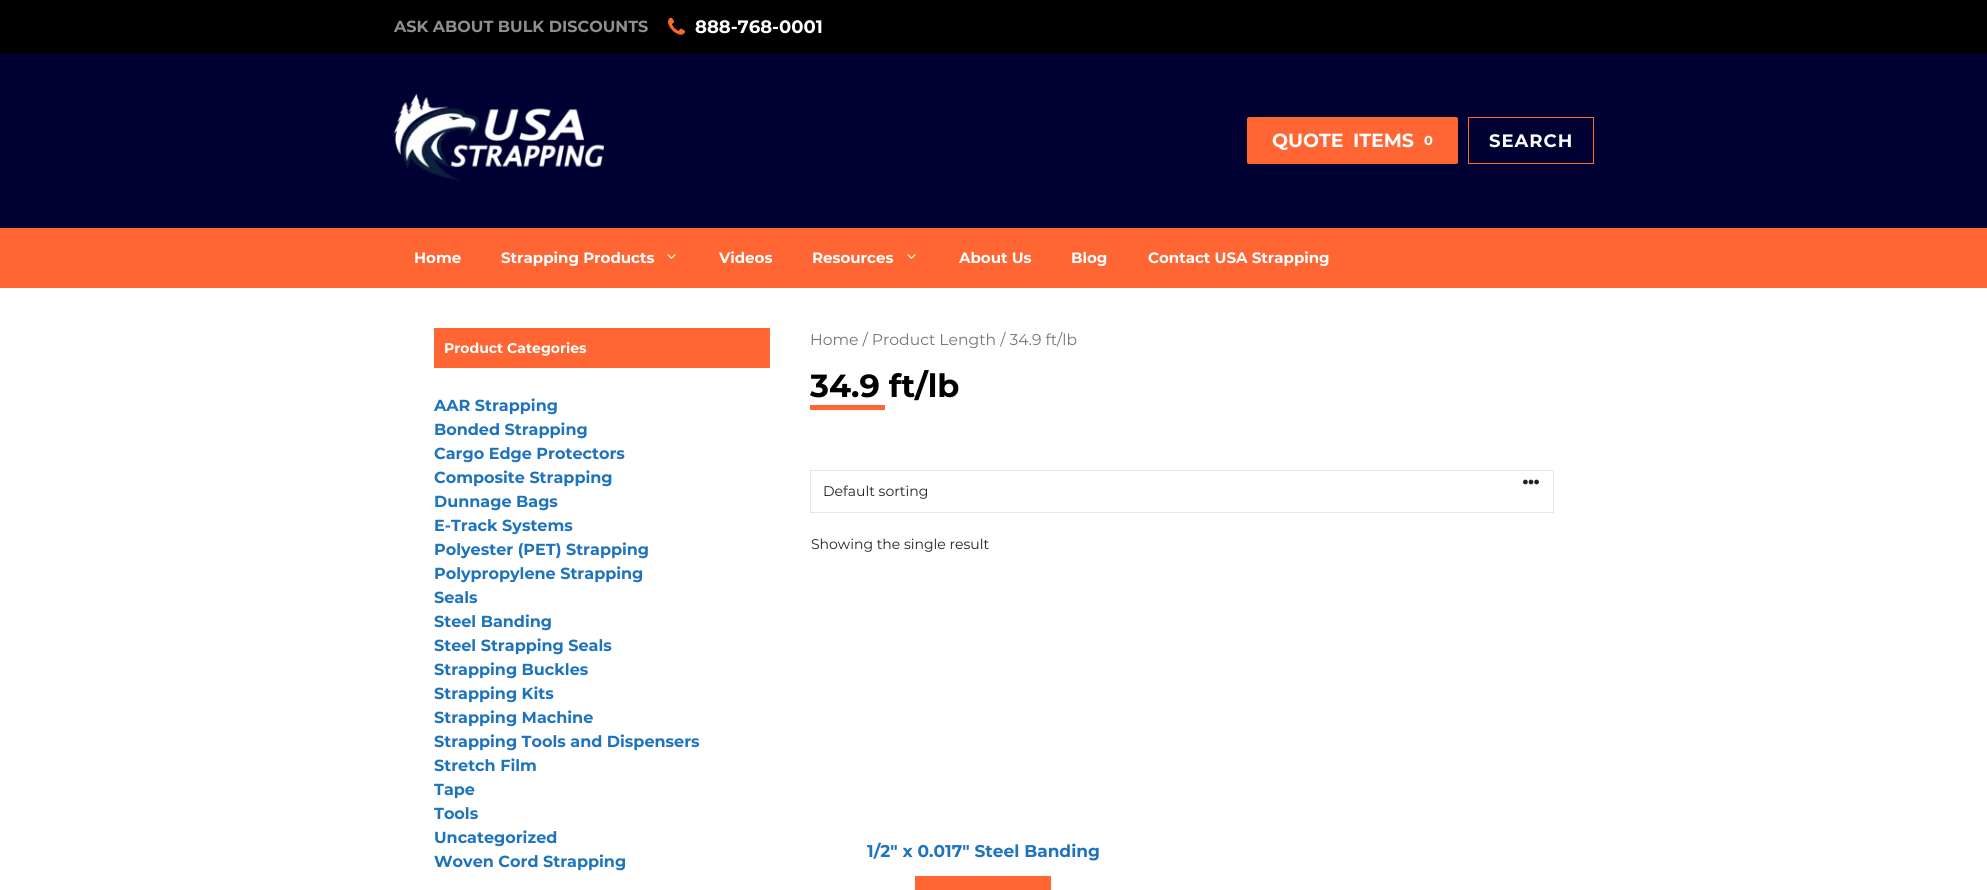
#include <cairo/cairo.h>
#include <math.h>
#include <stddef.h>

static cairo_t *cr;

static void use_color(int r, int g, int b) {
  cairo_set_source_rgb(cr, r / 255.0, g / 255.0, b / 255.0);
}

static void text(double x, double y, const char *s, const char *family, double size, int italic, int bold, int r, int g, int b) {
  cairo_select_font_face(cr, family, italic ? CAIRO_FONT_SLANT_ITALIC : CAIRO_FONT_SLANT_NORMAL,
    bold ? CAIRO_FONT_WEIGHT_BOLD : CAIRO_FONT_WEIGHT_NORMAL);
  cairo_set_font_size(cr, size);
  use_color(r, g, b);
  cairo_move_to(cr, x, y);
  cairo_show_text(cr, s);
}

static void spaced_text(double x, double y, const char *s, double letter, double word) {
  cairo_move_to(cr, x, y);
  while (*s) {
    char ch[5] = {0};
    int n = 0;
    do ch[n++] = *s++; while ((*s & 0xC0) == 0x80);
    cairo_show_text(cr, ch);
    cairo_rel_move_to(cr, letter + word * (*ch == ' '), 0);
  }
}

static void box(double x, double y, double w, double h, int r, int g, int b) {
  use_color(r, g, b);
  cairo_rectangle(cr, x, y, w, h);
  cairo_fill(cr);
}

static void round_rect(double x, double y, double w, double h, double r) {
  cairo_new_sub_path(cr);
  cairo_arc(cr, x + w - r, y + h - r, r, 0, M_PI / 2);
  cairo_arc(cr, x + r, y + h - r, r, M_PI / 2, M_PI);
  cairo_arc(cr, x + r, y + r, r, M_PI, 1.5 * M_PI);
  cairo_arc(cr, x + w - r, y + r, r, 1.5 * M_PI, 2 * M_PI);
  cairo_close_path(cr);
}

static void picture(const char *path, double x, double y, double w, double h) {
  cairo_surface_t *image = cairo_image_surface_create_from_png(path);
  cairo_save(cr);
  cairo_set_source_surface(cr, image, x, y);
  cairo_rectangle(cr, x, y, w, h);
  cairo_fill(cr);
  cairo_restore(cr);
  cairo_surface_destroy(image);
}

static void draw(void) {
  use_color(255, 255, 255);
  cairo_paint(cr);
  box(0, 0, 1987, 54, 0, 0, 0);
  picture("img_01.png", 668, 17, 17, 18);
  box(0, 54, 1987, 174, 0, 0, 51);
  picture("img_02.png", 394, 94, 210, 86);
  use_color(255, 102, 51);
  round_rect(1247, 117, 211, 47, 2);
  cairo_fill(cr);
  cairo_rectangle(cr, 1468.5, 117.5, 125, 46);
  cairo_set_line_width(cr, 1);
  cairo_stroke(cr);
  box(0, 228, 1987, 60, 255, 102, 51);
  picture("img_03.png", 667, 254, 9, 5);
  picture("img_03.png", 907, 254, 9, 5);
  box(434, 328, 336, 40, 255, 102, 51);
  box(810, 405, 75, 5, 255, 102, 51);
  cairo_rectangle(cr, 810.5, 470.5, 743, 42);
  use_color(230, 230, 230);
  cairo_stroke(cr);
  picture("img_04.png", 1523, 479, 16, 6);
  box(915, 876, 136, 14, 255, 102, 51);
  text(394, 32, "ASK ABOUT BULK DISCOUNTS", "Montserrat", 16, 0, 1, 143, 143, 143);
  text(695, 33, "888-768-0001", "Montserrat", 18, 0, 1, 255, 255, 255);
  text(1272, 147, "QUOTE", "Montserrat", 19, 0, 1, 255, 255, 255);
  text(1353, 147, "ITEMS", "Montserrat", 19, 0, 1, 255, 255, 255);
  text(1424, 145, "0", "Montserrat", 13, 0, 1, 255, 255, 255);
  cairo_set_font_size(cr, 18);
  spaced_text(1489, 147, "SEARCH", 1, 0);
  text(414, 263, "Home", "Montserrat", 15, 0, 1, 255, 255, 255);
  text(501, 263, "Strapping Products", "Montserrat", 15, 0, 1, 255, 255, 255);
  text(719, 263, "Videos", "Montserrat", 15, 0, 1, 255, 255, 255);
  text(812, 263, "Resources", "Montserrat", 15, 0, 1, 255, 255, 255);
  text(959, 263, "About Us", "Montserrat", 15, 0, 1, 255, 255, 255);
  text(1071, 263, "Blog", "Montserrat", 15, 0, 1, 255, 255, 255);
  text(1148, 263, "Contact USA Strapping", "Montserrat", 15, 0, 1, 255, 255, 255);
  text(444, 353, "Product Categories", "Montserrat", 14, 0, 1, 255, 255, 255);
  text(434, 411, "AAR Strapping", "Montserrat", 16, 0, 1, 30, 115, 190);
  text(434, 435, "Bonded Strapping", "Montserrat", 16, 0, 1, 30, 115, 190);
  text(434, 459, "Cargo Edge Protectors", "Montserrat", 16, 0, 1, 30, 115, 190);
  text(434, 483, "Composite Strapping", "Montserrat", 16, 0, 1, 30, 115, 190);
  text(434, 507, "Dunnage Bags", "Montserrat", 16, 0, 1, 30, 115, 190);
  text(434, 531, "E-Track Systems", "Montserrat", 16, 0, 1, 30, 115, 190);
  text(434, 555, "Polyester (PET) Strapping", "Montserrat", 16, 0, 1, 30, 115, 190);
  text(434, 579, "Polypropylene Strapping", "Montserrat", 16, 0, 1, 30, 115, 190);
  text(434, 603, "Seals", "Montserrat", 16, 0, 1, 30, 115, 190);
  text(434, 627, "Steel Banding", "Montserrat", 16, 0, 1, 30, 115, 190);
  text(434, 651, "Steel Strapping Seals", "Montserrat", 16, 0, 1, 30, 115, 190);
  text(434, 675, "Strapping Buckles", "Montserrat", 16, 0, 1, 30, 115, 190);
  text(434, 699, "Strapping Kits", "Montserrat", 16, 0, 1, 30, 115, 190);
  text(434, 723, "Strapping Machine", "Montserrat", 16, 0, 1, 30, 115, 190);
  text(434, 747, "Strapping Tools and Dispensers", "Montserrat", 16, 0, 1, 30, 115, 190);
  text(434, 771, "Stretch Film", "Montserrat", 16, 0, 1, 30, 115, 190);
  text(434, 795, "Tape", "Montserrat", 16, 0, 1, 30, 115, 190);
  text(434, 819, "Tools", "Montserrat", 16, 0, 1, 30, 115, 190);
  text(434, 843, "Uncategorized", "Montserrat", 16, 0, 1, 30, 115, 190);
  text(434, 867, "Woven Cord Strapping", "Montserrat", 16, 0, 1, 30, 115, 190);
  text(810, 345, "Home / Product Length / 34.9 ft/lb", "Montserrat", 15.6, 0, 0, 118, 118, 118);
  text(810, 397, "34.9 ft/lb", "Montserrat", 32, 0, 1, 0, 0, 0);
  text(823, 496, "Default sorting", "Montserrat", 14, 0, 0, 34, 34, 34);
  text(811, 549, "Showing the single result", "Montserrat", 14, 0, 0, 34, 34, 34);
  text(867, 857, "1/2″ x 0.017″ Steel Banding", "Montserrat", 17, 0, 1, 30, 115, 190);
}

int main(void) {
  cairo_surface_t *surface = cairo_image_surface_create(CAIRO_FORMAT_RGB24, 1987, 890);
  cr = cairo_create(surface);
  cairo_font_options_t *options = cairo_font_options_create();
  cairo_font_options_set_hint_metrics(options, CAIRO_HINT_METRICS_OFF);
  cairo_font_options_set_hint_style(options, CAIRO_HINT_STYLE_NONE);
  cairo_set_font_options(cr, options);
  cairo_set_miter_limit(cr, 4);
  draw();
  cairo_surface_write_to_png(surface, "out.png");
  cairo_font_options_destroy(options);
  cairo_destroy(cr);
  cairo_surface_destroy(surface);
  return 0;
}
